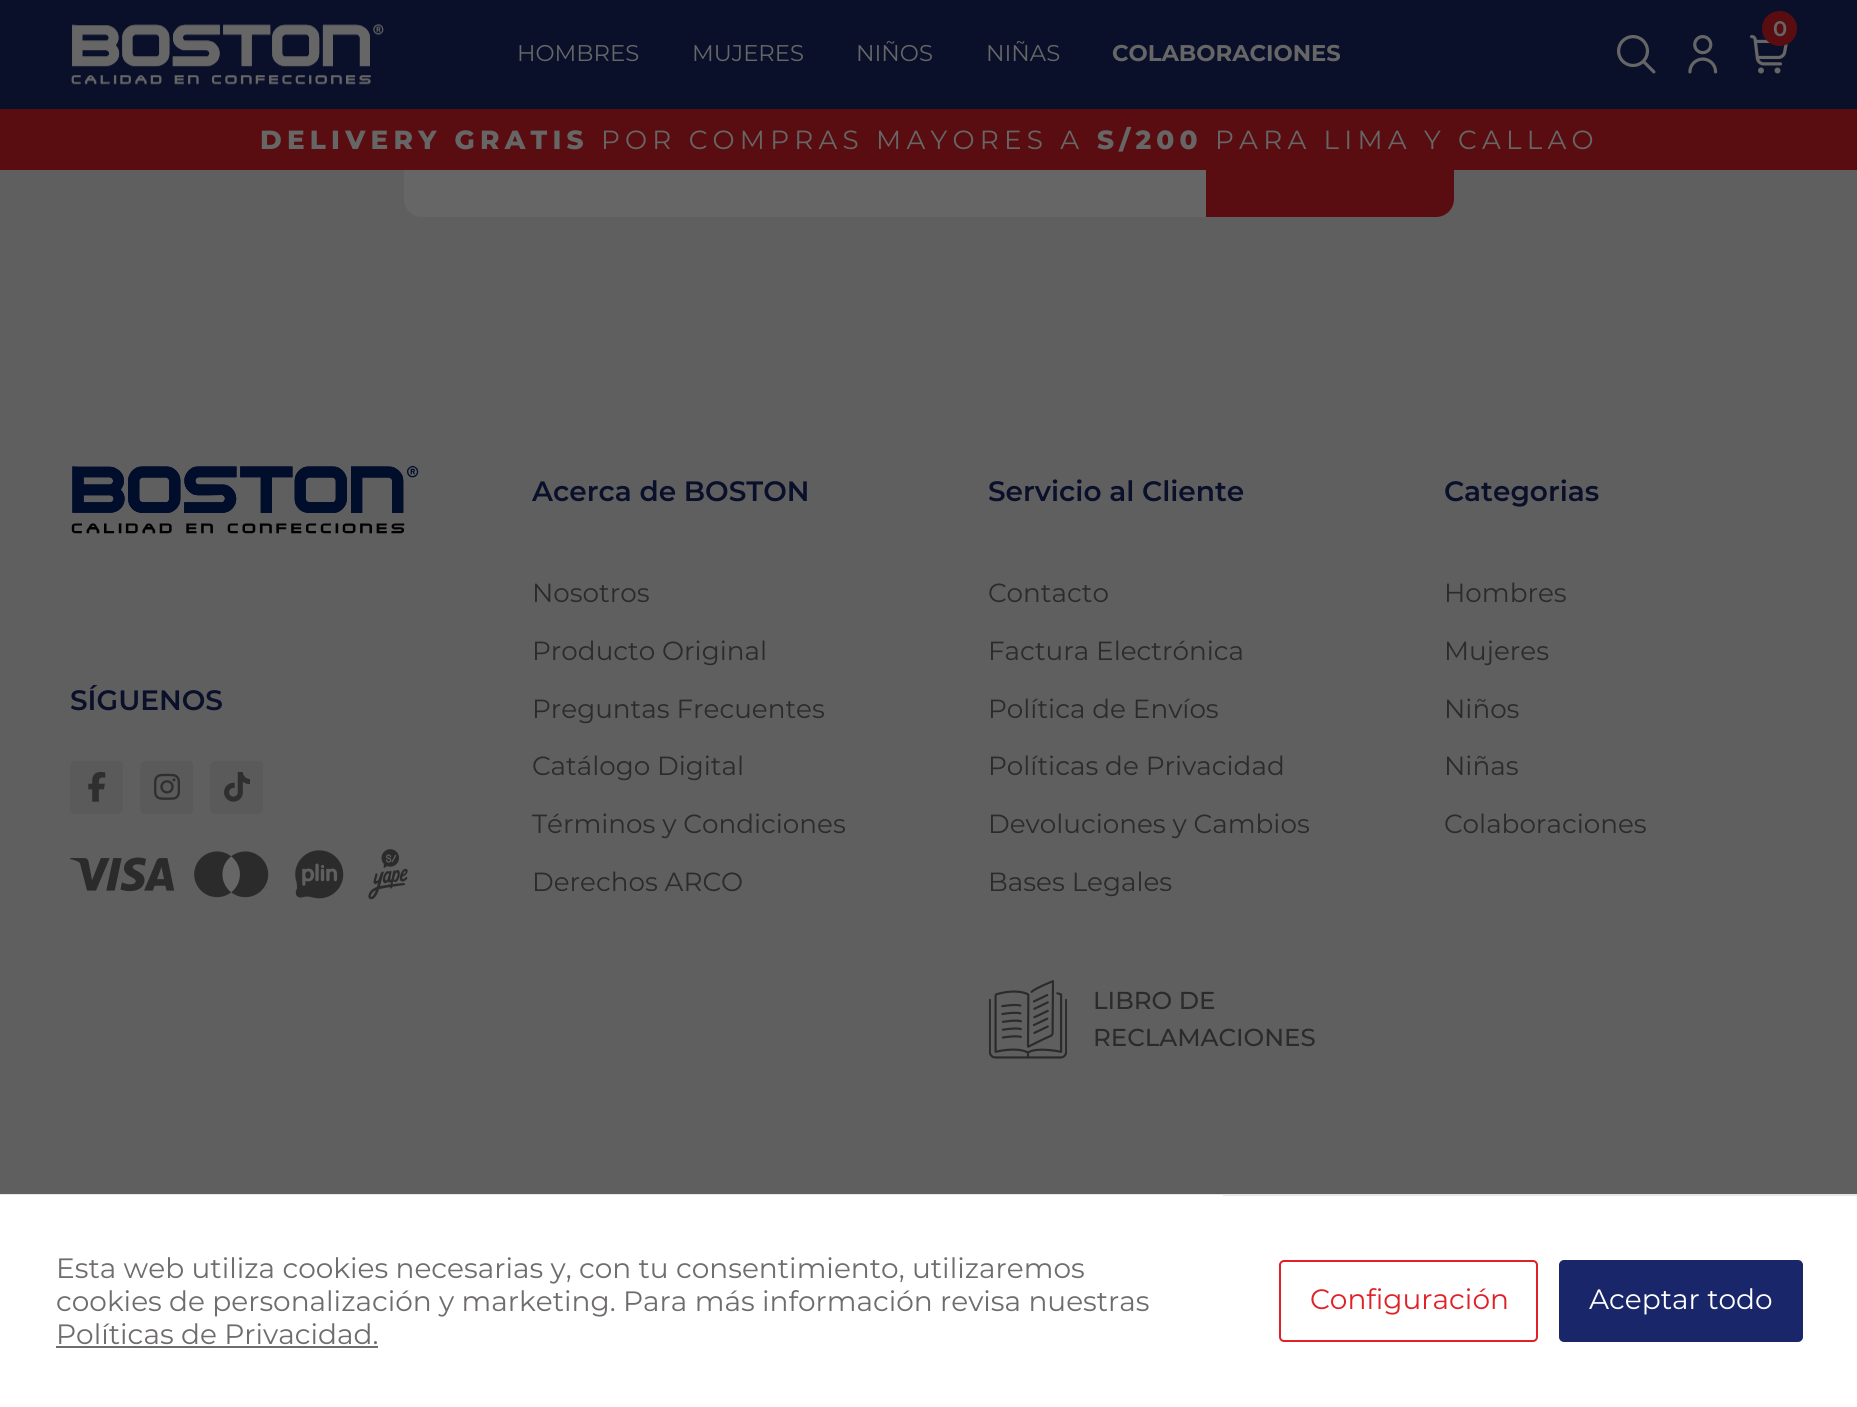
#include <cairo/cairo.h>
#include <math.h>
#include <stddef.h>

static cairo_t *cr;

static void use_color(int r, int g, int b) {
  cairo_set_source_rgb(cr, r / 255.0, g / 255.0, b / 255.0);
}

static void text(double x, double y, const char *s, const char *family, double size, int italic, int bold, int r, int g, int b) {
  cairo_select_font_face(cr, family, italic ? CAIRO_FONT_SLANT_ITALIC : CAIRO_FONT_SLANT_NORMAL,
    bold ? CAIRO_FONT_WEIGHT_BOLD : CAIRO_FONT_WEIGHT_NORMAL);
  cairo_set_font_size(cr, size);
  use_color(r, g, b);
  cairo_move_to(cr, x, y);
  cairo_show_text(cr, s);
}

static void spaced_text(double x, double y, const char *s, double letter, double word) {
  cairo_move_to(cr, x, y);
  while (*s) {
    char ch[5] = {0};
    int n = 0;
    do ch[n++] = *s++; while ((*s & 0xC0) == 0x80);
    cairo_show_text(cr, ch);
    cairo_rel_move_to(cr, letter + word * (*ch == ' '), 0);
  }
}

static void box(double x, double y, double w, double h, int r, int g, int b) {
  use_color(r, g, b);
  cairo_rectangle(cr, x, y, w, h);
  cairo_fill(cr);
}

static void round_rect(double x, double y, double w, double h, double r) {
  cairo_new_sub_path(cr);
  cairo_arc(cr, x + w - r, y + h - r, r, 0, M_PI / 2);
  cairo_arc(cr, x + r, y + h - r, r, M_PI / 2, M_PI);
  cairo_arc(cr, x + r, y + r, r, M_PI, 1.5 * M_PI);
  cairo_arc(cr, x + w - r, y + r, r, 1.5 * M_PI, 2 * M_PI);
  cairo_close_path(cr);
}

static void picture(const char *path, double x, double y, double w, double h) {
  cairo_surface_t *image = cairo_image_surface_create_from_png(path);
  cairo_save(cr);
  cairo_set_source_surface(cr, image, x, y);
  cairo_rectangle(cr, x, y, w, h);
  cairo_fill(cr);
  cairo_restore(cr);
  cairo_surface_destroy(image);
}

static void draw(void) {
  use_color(95, 95, 95);
  cairo_paint(cr);
  box(0, 0, 1857, 109, 10, 15, 42);
  picture("img_01.png", 71, 24, 313, 61);
  picture("img_02.png", 1750, 35, 38, 39);
  use_color(90, 13, 16);
  cairo_arc(cr, 1779.5, 28.5, 17.5, 0, 2 * M_PI);
  cairo_fill(cr);
  picture("img_03.png", 1617, 35, 39, 39);
  picture("img_04.png", 1688, 35, 30, 39);
  use_color(102, 102, 102);
  round_rect(404, 112, 1050, 105, 18);
  cairo_fill(cr);
  use_color(90, 13, 16);
  cairo_new_path(cr);
  cairo_move_to(cr, 1206, 112);
  cairo_line_to(cr, 1436, 112);
  cairo_curve_to(cr, 1446, 112, 1454, 120, 1454, 130);
  cairo_line_to(cr, 1454, 199);
  cairo_curve_to(cr, 1454, 209, 1446, 217, 1436, 217);
  cairo_line_to(cr, 1206, 217);
  cairo_close_path(cr);
  cairo_fill(cr);
  box(0, 109, 1857, 61, 90, 13, 16);
  picture("img_05.png", 71, 466, 348, 68);
  use_color(91, 90, 90);
  round_rect(70, 761, 53, 53, 5);
  cairo_fill(cr);
  picture("img_06.png", 88, 772, 18, 30);
  round_rect(140, 761, 53, 53, 5);
  cairo_fill(cr);
  picture("img_07.png", 154, 773, 26, 27);
  round_rect(210, 761, 53, 53, 5);
  cairo_fill(cr);
  picture("img_08.png", 224, 772, 26, 30);
  picture("img_09.png", 70, 849, 338, 51);
  picture("img_10.png", 989, 980, 78, 79);
  box(1223, 1196, 634, 211, 255, 255, 255);
  box(0, 1194, 1857, 2, 230, 230, 230);
  box(0, 1195, 1223, 212, 255, 255, 255);
  box(56, 1346, 322, 2, 111, 108, 108);
  round_rect(1280, 1261, 257, 80, 4);
  use_color(224, 33, 40);
  cairo_stroke(cr);
  use_color(26, 38, 106);
  round_rect(1560, 1261, 242, 80, 4);
  cairo_fill_preserve(cr);
  cairo_stroke(cr);
  text(517, 61, "HOMBRES", "Montserrat", 22.75, 0, 0, 102, 102, 102);
  text(692, 61, "MUJERES", "Montserrat", 22.75, 0, 0, 102, 102, 102);
  text(856, 61, "NIÑOS", "Montserrat", 22.75, 0, 0, 102, 102, 102);
  text(986, 61, "NIÑAS", "Montserrat", 22.75, 0, 0, 102, 102, 102);
  text(1112, 61, "COLABORACIONES", "Montserrat", 22.75, 0, 1, 102, 102, 102);
  text(1773, 36, "0", "Montserrat SemiBold", 21, 0, 0, 102, 102, 102);
  cairo_select_font_face(cr, "Montserrat ExtraBold", CAIRO_FONT_SLANT_NORMAL, CAIRO_FONT_WEIGHT_NORMAL);
  cairo_set_font_size(cr, 26.25);
  spaced_text(260, 149, "DELIVERY GRATIS", 5.25, 0);
  cairo_select_font_face(cr, "Montserrat", CAIRO_FONT_SLANT_NORMAL, CAIRO_FONT_WEIGHT_NORMAL);
  spaced_text(601, 149, "POR COMPRAS MAYORES A", 5.25, 0);
  cairo_select_font_face(cr, "Montserrat ExtraBold", CAIRO_FONT_SLANT_NORMAL, CAIRO_FONT_WEIGHT_NORMAL);
  spaced_text(1097, 149, "S/200", 5.25, 0);
  cairo_select_font_face(cr, "Montserrat", CAIRO_FONT_SLANT_NORMAL, CAIRO_FONT_WEIGHT_NORMAL);
  spaced_text(1215, 149, "PARA LIMA Y CALLAO", 5.25, 0);
  text(70, 710, "SÍGUENOS", "Montserrat SemiBold", 28, 0, 0, 10, 15, 42);
  text(532, 501, "Acerca de BOSTON", "Montserrat SemiBold", 28, 0, 0, 10, 15, 42);
  text(532, 602, "Nosotros", "Montserrat", 26.25, 0, 0, 44, 43, 43);
  text(532, 660, "Producto Original", "Montserrat", 26.25, 0, 0, 44, 43, 43);
  text(532, 718, "Preguntas Frecuentes", "Montserrat", 26.25, 0, 0, 44, 43, 43);
  text(532, 775, "Catálogo Digital", "Montserrat", 26.25, 0, 0, 44, 43, 43);
  text(532, 833, "Términos y Condiciones", "Montserrat", 26.25, 0, 0, 44, 43, 43);
  text(532, 891, "Derechos ARCO", "Montserrat", 26.25, 0, 0, 44, 43, 43);
  text(988, 501, "Servicio al Cliente", "Montserrat SemiBold", 28, 0, 0, 10, 15, 42);
  text(988, 602, "Contacto", "Montserrat", 26.25, 0, 0, 44, 43, 43);
  text(988, 660, "Factura Electrónica", "Montserrat", 26.25, 0, 0, 44, 43, 43);
  text(988, 718, "Política de Envíos", "Montserrat", 26.25, 0, 0, 44, 43, 43);
  text(988, 775, "Políticas de Privacidad", "Montserrat", 26.25, 0, 0, 44, 43, 43);
  text(988, 833, "Devoluciones y Cambios", "Montserrat", 26.25, 0, 0, 44, 43, 43);
  text(988, 891, "Bases Legales", "Montserrat", 26.25, 0, 0, 44, 43, 43);
  text(1093, 1009, "LIBRO DE", "Montserrat Medium", 24.5, 0, 0, 44, 43, 43);
  text(1093, 1046, "RECLAMACIONES", "Montserrat Medium", 24.5, 0, 0, 44, 43, 43);
  text(1444, 501, "Categorias", "Montserrat SemiBold", 28, 0, 0, 10, 15, 42);
  text(1444, 602, "Hombres", "Montserrat", 26.25, 0, 0, 44, 43, 43);
  text(1444, 660, "Mujeres", "Montserrat", 26.25, 0, 0, 44, 43, 43);
  text(1444, 718, "Niños", "Montserrat", 26.25, 0, 0, 44, 43, 43);
  text(1444, 775, "Niñas", "Montserrat", 26.25, 0, 0, 44, 43, 43);
  text(1444, 833, "Colaboraciones", "Montserrat", 26.25, 0, 0, 44, 43, 43);
  text(56, 1278, "Esta web utiliza cookies necesarias y, con tu consentimiento, utilizaremos", "Montserrat", 28, 0, 0, 111, 108, 108);
  text(56, 1311, "cookies de personalización y marketing. Para más información revisa nuestras", "Montserrat", 28, 0, 0, 111, 108, 108);
  text(56, 1344, "Políticas de Privacidad.", "Montserrat", 28, 0, 0, 111, 108, 108);
  text(1310, 1309, "Configuración", "Montserrat", 28, 0, 0, 224, 33, 40);
  text(1589, 1309, "Aceptar todo", "Montserrat", 28, 0, 0, 255, 255, 255);
}

int main(void) {
  cairo_surface_t *surface = cairo_image_surface_create(CAIRO_FORMAT_RGB24, 1857, 1407);
  cr = cairo_create(surface);
  cairo_font_options_t *options = cairo_font_options_create();
  cairo_font_options_set_hint_metrics(options, CAIRO_HINT_METRICS_OFF);
  cairo_font_options_set_hint_style(options, CAIRO_HINT_STYLE_NONE);
  cairo_set_font_options(cr, options);
  cairo_set_miter_limit(cr, 4);
  draw();
  cairo_surface_write_to_png(surface, "out.png");
  cairo_font_options_destroy(options);
  cairo_destroy(cr);
  cairo_surface_destroy(surface);
  return 0;
}
